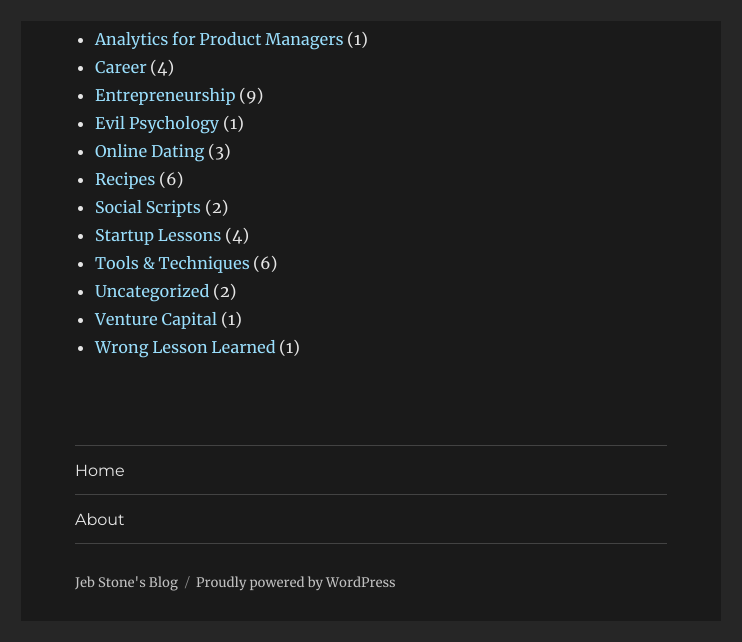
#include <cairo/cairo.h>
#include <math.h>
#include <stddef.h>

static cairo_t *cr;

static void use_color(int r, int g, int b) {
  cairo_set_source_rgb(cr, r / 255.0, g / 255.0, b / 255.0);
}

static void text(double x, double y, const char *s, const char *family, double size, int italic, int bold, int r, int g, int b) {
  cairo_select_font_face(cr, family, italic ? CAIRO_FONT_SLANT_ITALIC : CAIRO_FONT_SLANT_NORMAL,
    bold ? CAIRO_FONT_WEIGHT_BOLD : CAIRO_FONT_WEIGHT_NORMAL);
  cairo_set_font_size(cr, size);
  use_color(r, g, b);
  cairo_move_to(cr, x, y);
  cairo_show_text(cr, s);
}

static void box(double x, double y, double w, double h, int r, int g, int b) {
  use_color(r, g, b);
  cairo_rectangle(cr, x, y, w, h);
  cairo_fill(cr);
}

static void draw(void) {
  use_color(38, 38, 38);
  cairo_paint(cr);
  box(21, 21, 700, 600, 26, 26, 26);
  use_color(229, 229, 229);
  cairo_arc(cr, 80.5, 40.5, 2.5, 0, 2 * M_PI);
  cairo_fill(cr);
  cairo_arc(cr, 80.5, 68.5, 2.5, 0, 2 * M_PI);
  cairo_fill(cr);
  cairo_arc(cr, 80.5, 96.5, 2.5, 0, 2 * M_PI);
  cairo_fill(cr);
  cairo_arc(cr, 80.5, 124.5, 2.5, 0, 2 * M_PI);
  cairo_fill(cr);
  cairo_arc(cr, 80.5, 152.5, 2.5, 0, 2 * M_PI);
  cairo_fill(cr);
  cairo_arc(cr, 80.5, 180.5, 2.5, 0, 2 * M_PI);
  cairo_fill(cr);
  cairo_arc(cr, 80.5, 208.5, 2.5, 0, 2 * M_PI);
  cairo_fill(cr);
  cairo_arc(cr, 80.5, 236.5, 2.5, 0, 2 * M_PI);
  cairo_fill(cr);
  cairo_arc(cr, 80.5, 264.5, 2.5, 0, 2 * M_PI);
  cairo_fill(cr);
  cairo_arc(cr, 80.5, 292.5, 2.5, 0, 2 * M_PI);
  cairo_fill(cr);
  cairo_arc(cr, 80.5, 320.5, 2.5, 0, 2 * M_PI);
  cairo_fill(cr);
  cairo_arc(cr, 80.5, 348.5, 2.5, 0, 2 * M_PI);
  cairo_fill(cr);
  box(75, 543, 592, 1, 67, 67, 67);
  box(75, 445, 592, 1, 67, 67, 67);
  box(75, 494, 592, 1, 67, 67, 67);
  text(95, 45, "Analytics for Product Managers", "Merriweather", 16, 0, 0, 154, 223, 253);
  text(347, 45, "(1)", "Merriweather", 16, 0, 0, 229, 229, 229);
  text(95, 73, "Career", "Merriweather", 16, 0, 0, 154, 223, 253);
  text(150, 73, "(4)", "Merriweather", 16, 0, 0, 229, 229, 229);
  text(95, 101, "Entrepreneurship", "Merriweather", 16, 0, 0, 154, 223, 253);
  text(239, 101, "(9)", "Merriweather", 16, 0, 0, 229, 229, 229);
  text(95, 129, "Evil Psychology", "Merriweather", 16, 0, 0, 154, 223, 253);
  text(223, 129, "(1)", "Merriweather", 16, 0, 0, 229, 229, 229);
  text(95, 157, "Online Dating", "Merriweather", 16, 0, 0, 154, 223, 253);
  text(208, 157, "(3)", "Merriweather", 16, 0, 0, 229, 229, 229);
  text(95, 185, "Recipes", "Merriweather", 16, 0, 0, 154, 223, 253);
  text(159, 185, "(6)", "Merriweather", 16, 0, 0, 229, 229, 229);
  text(95, 213, "Social Scripts", "Merriweather", 16, 0, 0, 154, 223, 253);
  text(205, 213, "(2)", "Merriweather", 16, 0, 0, 229, 229, 229);
  text(95, 241, "Startup Lessons", "Merriweather", 16, 0, 0, 154, 223, 253);
  text(225, 241, "(4)", "Merriweather", 16, 0, 0, 229, 229, 229);
  text(95, 269, "Tools & Techniques", "Merriweather", 16, 0, 0, 154, 223, 253);
  text(253, 269, "(6)", "Merriweather", 16, 0, 0, 229, 229, 229);
  text(95, 297, "Uncategorized", "Merriweather", 16, 0, 0, 154, 223, 253);
  text(213, 297, "(2)", "Merriweather", 16, 0, 0, 229, 229, 229);
  text(95, 325, "Venture Capital", "Merriweather", 16, 0, 0, 154, 223, 253);
  text(221, 325, "(1)", "Merriweather", 16, 0, 0, 229, 229, 229);
  text(95, 353, "Wrong Lesson Learned", "Merriweather", 16, 0, 0, 154, 223, 253);
  text(279, 353, "(1)", "Merriweather", 16, 0, 0, 229, 229, 229);
  text(75, 476, "Home", "Montserrat Thin", 16, 0, 0, 229, 229, 229);
  text(75, 525, "About", "Montserrat Thin", 16, 0, 0, 229, 229, 229);
  text(75, 587, "Jeb Stone's Blog", "Merriweather", 13, 0, 0, 193, 193, 193);
  text(185, 587, "/", "Montserrat Thin", 13, 0, 0, 143, 143, 143);
  text(196, 587, "Proudly powered by WordPress", "Merriweather", 13, 0, 0, 193, 193, 193);
}

int main(void) {
  cairo_surface_t *surface = cairo_image_surface_create(CAIRO_FORMAT_RGB24, 742, 642);
  cr = cairo_create(surface);
  cairo_font_options_t *options = cairo_font_options_create();
  cairo_font_options_set_hint_metrics(options, CAIRO_HINT_METRICS_OFF);
  cairo_font_options_set_hint_style(options, CAIRO_HINT_STYLE_NONE);
  cairo_set_font_options(cr, options);
  cairo_set_miter_limit(cr, 4);
  draw();
  cairo_surface_write_to_png(surface, "out.png");
  cairo_font_options_destroy(options);
  cairo_destroy(cr);
  cairo_surface_destroy(surface);
  return 0;
}
